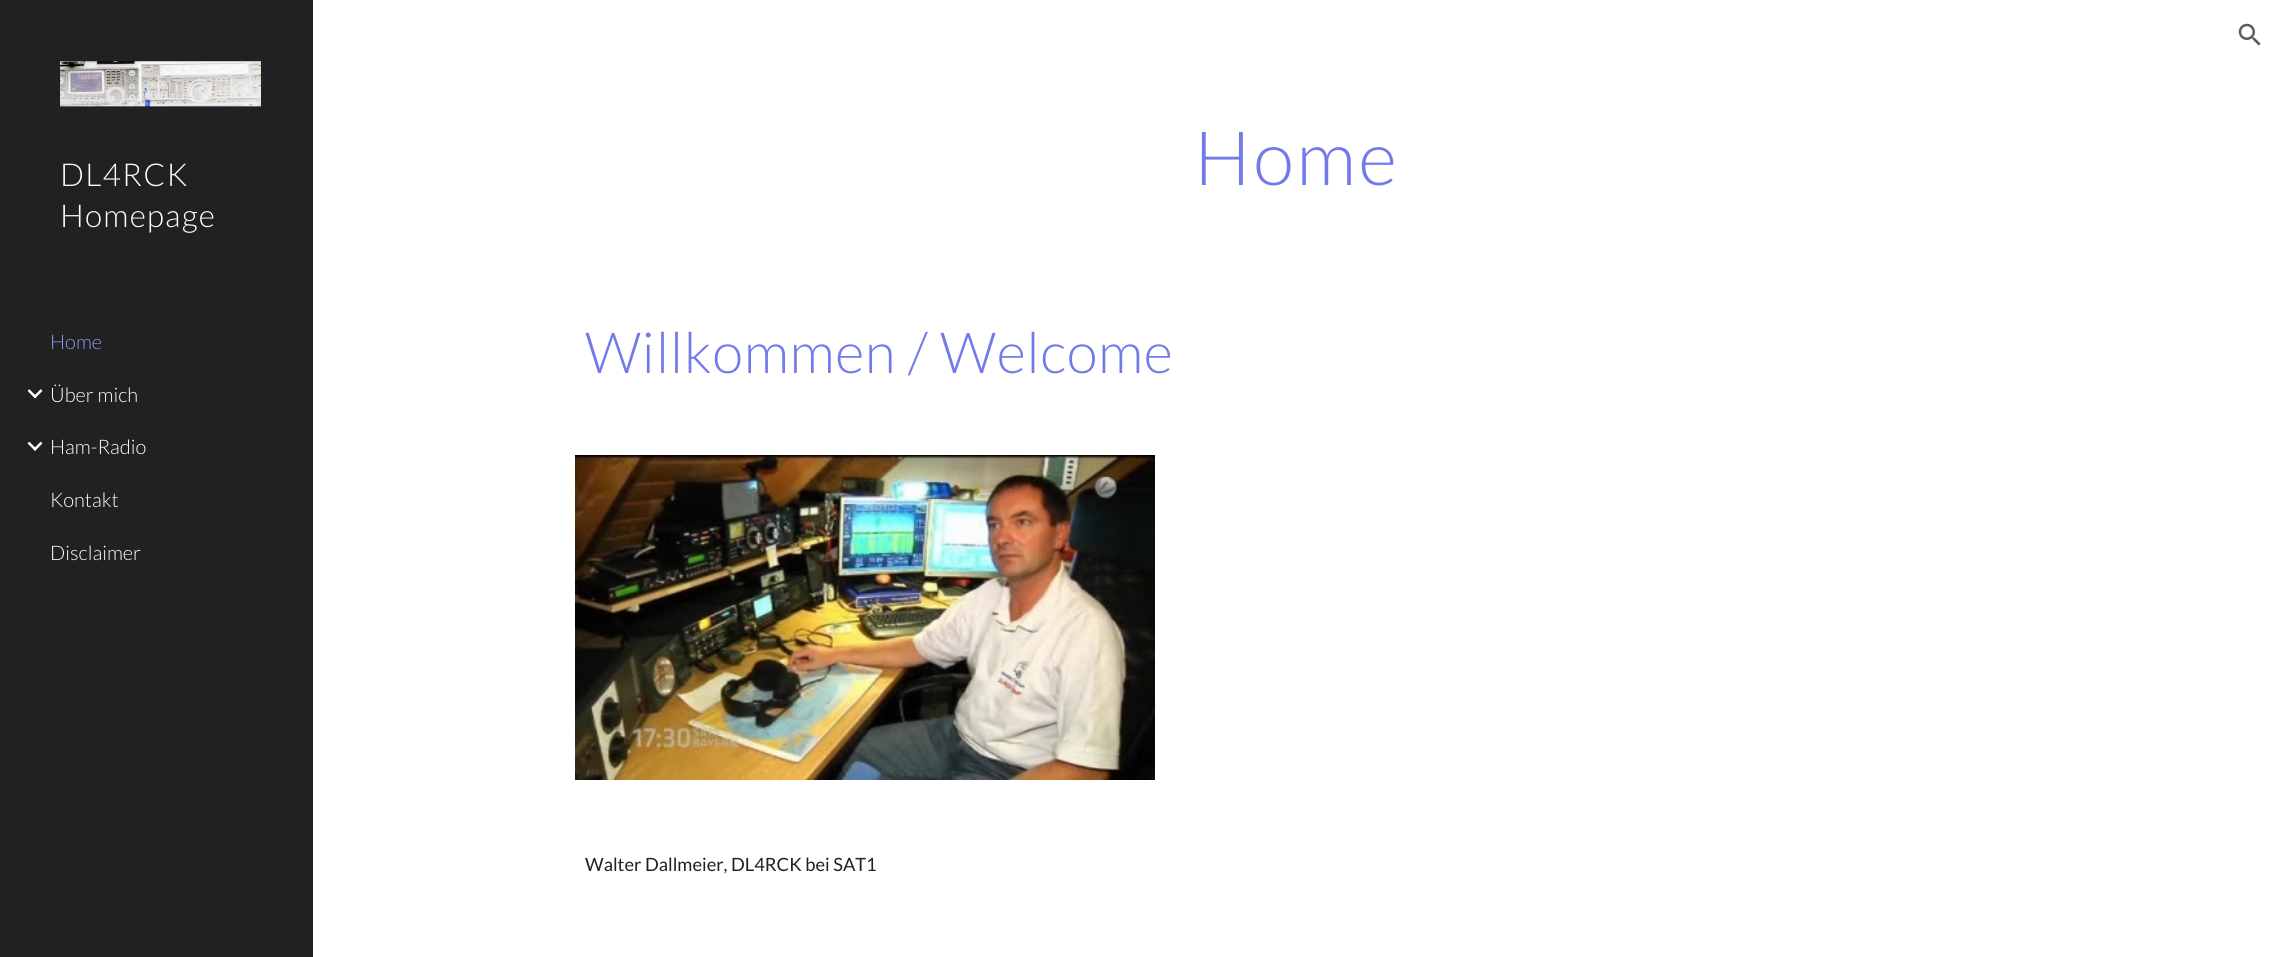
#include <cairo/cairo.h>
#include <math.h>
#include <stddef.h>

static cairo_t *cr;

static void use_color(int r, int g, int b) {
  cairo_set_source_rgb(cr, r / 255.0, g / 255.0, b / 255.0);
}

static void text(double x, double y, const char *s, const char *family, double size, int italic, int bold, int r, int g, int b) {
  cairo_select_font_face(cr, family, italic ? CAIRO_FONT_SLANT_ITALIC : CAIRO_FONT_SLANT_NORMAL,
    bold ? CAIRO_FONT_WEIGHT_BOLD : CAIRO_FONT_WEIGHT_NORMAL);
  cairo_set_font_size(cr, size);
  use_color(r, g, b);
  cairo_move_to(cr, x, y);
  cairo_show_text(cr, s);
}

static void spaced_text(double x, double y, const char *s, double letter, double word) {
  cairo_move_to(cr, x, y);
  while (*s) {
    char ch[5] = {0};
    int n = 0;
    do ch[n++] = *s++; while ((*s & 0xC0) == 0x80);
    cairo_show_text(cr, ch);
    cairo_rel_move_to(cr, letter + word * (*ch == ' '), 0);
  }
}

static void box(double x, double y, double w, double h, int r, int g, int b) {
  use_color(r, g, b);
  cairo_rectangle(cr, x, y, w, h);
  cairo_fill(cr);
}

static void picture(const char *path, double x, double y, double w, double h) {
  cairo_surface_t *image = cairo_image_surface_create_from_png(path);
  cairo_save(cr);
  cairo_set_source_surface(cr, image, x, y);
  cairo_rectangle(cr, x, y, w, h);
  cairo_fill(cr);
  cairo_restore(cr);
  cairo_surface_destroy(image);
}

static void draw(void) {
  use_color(255, 255, 255);
  cairo_paint(cr);
  picture("img_01.png", 2238, 23, 23, 23);
  box(0, 0, 313, 957, 33, 33, 33);
  picture("img_02.png", 60, 61, 201, 46);
  picture("img_03.png", 27, 389, 16, 10);
  picture("img_04.png", 27, 441, 16, 10);
  picture("img_05.png", 575, 455, 580, 325);
  cairo_select_font_face(cr, "Lato Light", CAIRO_FONT_SLANT_NORMAL, CAIRO_FONT_WEIGHT_NORMAL);
  cairo_set_font_size(cr, 31.5);
  use_color(255, 255, 255);
  spaced_text(60, 186, "DL4RCK", 1.25, 0);
  spaced_text(60, 227, "Homepage", 1.25, 0);
  text(50, 349, "Home", "Lato Light", 20, 0, 0, 142, 149, 237);
  text(50, 402, "Über mich", "Lato Light", 20, 0, 0, 255, 255, 255);
  text(50, 454, "Ham-Radio", "Lato Light", 20, 0, 0, 255, 255, 255);
  text(50, 507, "Kontakt", "Lato Light", 20, 0, 0, 255, 255, 255);
  text(50, 560, "Disclaimer", "Lato Light", 20, 0, 0, 255, 255, 255);
  cairo_set_font_size(cr, 75);
  use_color(114, 122, 233);
  spaced_text(1194, 185, "Home", 2.5, 0);
  cairo_set_font_size(cr, 56.75);
  spaced_text(585, 373, "Willkommen / Welcome", 0.6, 0);
  text(585, 871, "Walter Dallmeier, DL4RCK bei SAT1", "Lato", 18.3, 0, 0, 33, 33, 33);
}

int main(void) {
  cairo_surface_t *surface = cairo_image_surface_create(CAIRO_FORMAT_RGB24, 2279, 957);
  cr = cairo_create(surface);
  cairo_font_options_t *options = cairo_font_options_create();
  cairo_font_options_set_hint_metrics(options, CAIRO_HINT_METRICS_OFF);
  cairo_font_options_set_hint_style(options, CAIRO_HINT_STYLE_NONE);
  cairo_set_font_options(cr, options);
  cairo_set_miter_limit(cr, 4);
  draw();
  cairo_surface_write_to_png(surface, "out.png");
  cairo_font_options_destroy(options);
  cairo_destroy(cr);
  cairo_surface_destroy(surface);
  return 0;
}
